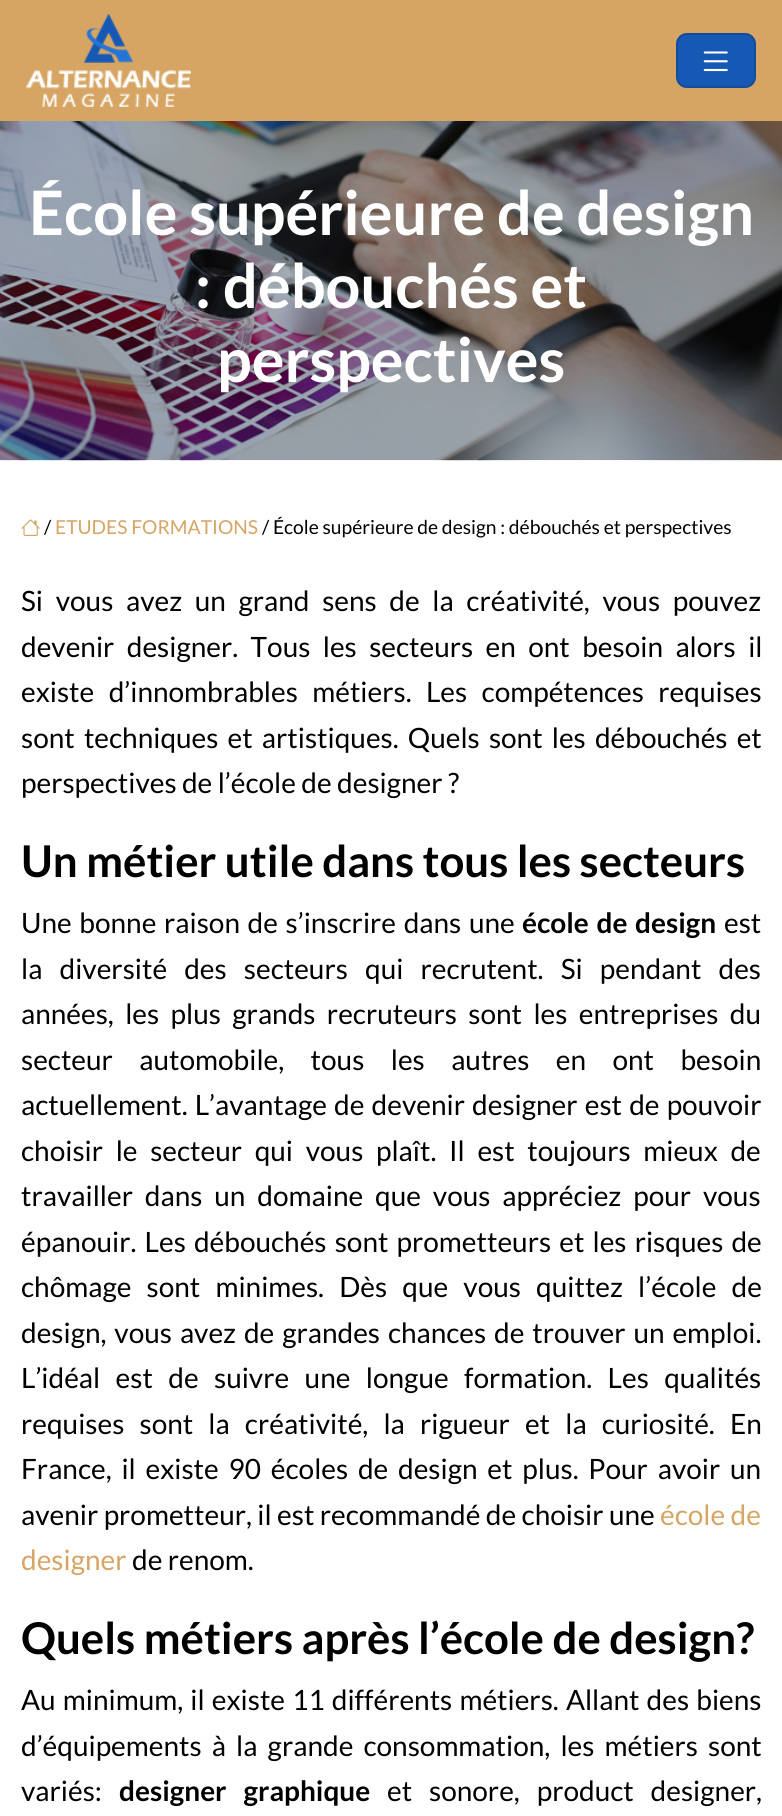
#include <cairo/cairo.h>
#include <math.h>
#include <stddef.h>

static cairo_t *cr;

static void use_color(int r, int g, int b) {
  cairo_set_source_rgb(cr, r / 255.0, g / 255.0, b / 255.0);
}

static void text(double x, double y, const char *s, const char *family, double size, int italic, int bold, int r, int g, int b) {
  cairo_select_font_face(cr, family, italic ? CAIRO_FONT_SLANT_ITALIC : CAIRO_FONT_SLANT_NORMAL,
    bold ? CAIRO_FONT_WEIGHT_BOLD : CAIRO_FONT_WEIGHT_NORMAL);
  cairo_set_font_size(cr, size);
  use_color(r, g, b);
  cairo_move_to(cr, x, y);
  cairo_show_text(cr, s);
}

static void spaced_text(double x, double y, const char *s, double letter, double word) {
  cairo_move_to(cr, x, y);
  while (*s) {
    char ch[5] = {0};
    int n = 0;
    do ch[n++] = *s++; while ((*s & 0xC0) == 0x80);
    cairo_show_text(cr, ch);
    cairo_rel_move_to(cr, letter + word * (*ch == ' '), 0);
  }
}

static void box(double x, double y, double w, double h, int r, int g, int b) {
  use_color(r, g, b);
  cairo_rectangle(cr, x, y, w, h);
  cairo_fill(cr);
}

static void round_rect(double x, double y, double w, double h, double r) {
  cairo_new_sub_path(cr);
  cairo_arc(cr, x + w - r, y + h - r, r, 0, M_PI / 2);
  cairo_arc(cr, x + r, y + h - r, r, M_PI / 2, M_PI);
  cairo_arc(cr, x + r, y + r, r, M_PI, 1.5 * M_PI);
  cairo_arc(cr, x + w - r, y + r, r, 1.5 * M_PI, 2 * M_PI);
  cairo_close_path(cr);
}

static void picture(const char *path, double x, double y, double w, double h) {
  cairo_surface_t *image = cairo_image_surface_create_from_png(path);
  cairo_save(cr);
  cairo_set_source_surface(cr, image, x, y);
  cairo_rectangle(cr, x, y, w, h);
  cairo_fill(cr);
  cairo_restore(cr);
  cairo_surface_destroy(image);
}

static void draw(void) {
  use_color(255, 255, 255);
  cairo_paint(cr);
  box(0, 0, 782, 121, 214, 165, 100);
  picture("img_01.png", 26, 14, 165, 93);
  use_color(22, 89, 181);
  round_rect(676, 33, 80, 55, 11);
  cairo_fill(cr);
  round_rect(677, 34, 78, 53, 10);
  cairo_set_source_rgba(cr, 0, 0, 0, 0.15);
  cairo_stroke(cr);
  picture("img_02.png", 703, 51, 25, 21);
  picture("img_03.png", 0, 121, 782, 340);
  picture("img_04.png", 21, 519, 19, 17);
  text(29, 235, "École supérieure de design", "Lato", 61.25, 0, 1, 255, 255, 255);
  text(195, 308, ": débouchés et", "Lato", 61.25, 0, 1, 255, 255, 255);
  text(217, 382, "perspectives", "Lato", 61.25, 0, 1, 255, 255, 255);
  text(44, 534, "/", "Lato", 19.25, 0, 0, 0, 0, 0);
  text(55, 534, "ETUDES FORMATIONS", "Lato", 19.25, 0, 0, 214, 165, 100);
  text(262, 534, "/ École supérieure de design : débouchés et perspectives", "Lato", 19.25, 0, 0, 0, 0, 0);
  cairo_set_font_size(cr, 28);
  spaced_text(21, 611, "Si vous avez un grand sens de la créativité, vous pouvez", 0, 7.25);
  spaced_text(21, 657, "devenir designer. Tous les secteurs en ont besoin alors il", 0, 7);
  spaced_text(21, 702, "existe d’innombrables métiers. Les compétences requises", 0, 9);
  spaced_text(21, 748, "sont techniques et artistiques. Quels sont les débouchés et", 0, 3.75);
  text(21, 793, "perspectives de l’école de designer ?", "Lato", 28, 0, 0, 0, 0, 0);
  text(21, 877, "Un métier utile dans tous les secteurs", "Lato", 43.75, 0, 1, 0, 0, 0);
  cairo_select_font_face(cr, "Lato", CAIRO_FONT_SLANT_NORMAL, CAIRO_FONT_WEIGHT_NORMAL);
  cairo_set_font_size(cr, 28);
  spaced_text(21, 933, "Une bonne raison de s’inscrire dans une", 0, 2.25);
  cairo_select_font_face(cr, "Lato", CAIRO_FONT_SLANT_NORMAL, CAIRO_FONT_WEIGHT_BOLD);
  spaced_text(522, 933, "école de design", 0, 2.25);
  text(724, 933, "est", "Lato", 28, 0, 0, 0, 0, 0);
  spaced_text(21, 979, "la diversité des secteurs qui recrutent. Si pendant des", 0, 11.75);
  spaced_text(21, 1024, "années, les plus grands recruteurs sont les entreprises du", 0, 6);
  spaced_text(21, 1070, "secteur automobile, tous les autres en ont besoin", 0, 21);
  spaced_text(21, 1115, "actuellement. L’avantage de devenir designer est de pouvoir", 0, 1.75);
  spaced_text(21, 1161, "choisir le secteur qui vous plaît. Il est toujours mieux de", 0, 7.25);
  spaced_text(21, 1206, "travailler dans un domaine que vous appréciez pour vous", 0, 6.5);
  spaced_text(21, 1252, "épanouir. Les débouchés sont prometteurs et les risques de", 0, 2.75);
  spaced_text(21, 1297, "chômage sont minimes. Dès que vous quittez l’école de", 0, 9.75);
  spaced_text(21, 1343, "design, vous avez de grandes chances de trouver un emploi.", 0, 2.5);
  spaced_text(21, 1388, "L’idéal est de suivre une longue formation. Les qualités", 0, 10);
  spaced_text(21, 1434, "requises sont la créativité, la rigueur et la curiosité. En", 0, 9.75);
  spaced_text(21, 1479, "France, il existe 90 écoles de design et plus. Pour avoir un", 0, 4.4);
  text(21, 1525, "avenir prometteur, il est recommandé de choisir une", "Lato", 28, 0, 0, 0, 0, 0);
  text(660, 1525, "école de", "Lato", 28, 0, 0, 214, 165, 100);
  text(21, 1570, "designer", "Lato", 28, 0, 0, 214, 165, 100);
  text(132, 1570, "de renom.", "Lato", 28, 0, 0, 0, 0, 0);
  text(21, 1654, "Quels métiers après l’école de design?", "Lato", 43.75, 0, 1, 0, 0, 0);
  cairo_select_font_face(cr, "Lato", CAIRO_FONT_SLANT_NORMAL, CAIRO_FONT_WEIGHT_NORMAL);
  cairo_set_font_size(cr, 28);
  spaced_text(21, 1710, "Au minimum, il existe 11 différents métiers. Allant des biens", 0, 1.75);
  spaced_text(21, 1756, "d’équipements à la grande consommation, les métiers sont", 0, 4.75);
  text(21, 1801, "variés:", "Lato", 28, 0, 0, 0, 0, 0);
  cairo_select_font_face(cr, "Lato", CAIRO_FONT_SLANT_NORMAL, CAIRO_FONT_WEIGHT_BOLD);
  spaced_text(119, 1801, "designer graphique", 0, 11.5);
  cairo_select_font_face(cr, "Lato", CAIRO_FONT_SLANT_NORMAL, CAIRO_FONT_WEIGHT_NORMAL);
  spaced_text(387, 1801, "et sonore, product designer,", 0, 11.5);
}

int main(void) {
  cairo_surface_t *surface = cairo_image_surface_create(CAIRO_FORMAT_RGB24, 782, 1816);
  cr = cairo_create(surface);
  cairo_font_options_t *options = cairo_font_options_create();
  cairo_font_options_set_hint_metrics(options, CAIRO_HINT_METRICS_OFF);
  cairo_font_options_set_hint_style(options, CAIRO_HINT_STYLE_NONE);
  cairo_set_font_options(cr, options);
  cairo_set_miter_limit(cr, 4);
  draw();
  cairo_surface_write_to_png(surface, "out.png");
  cairo_font_options_destroy(options);
  cairo_destroy(cr);
  cairo_surface_destroy(surface);
  return 0;
}
